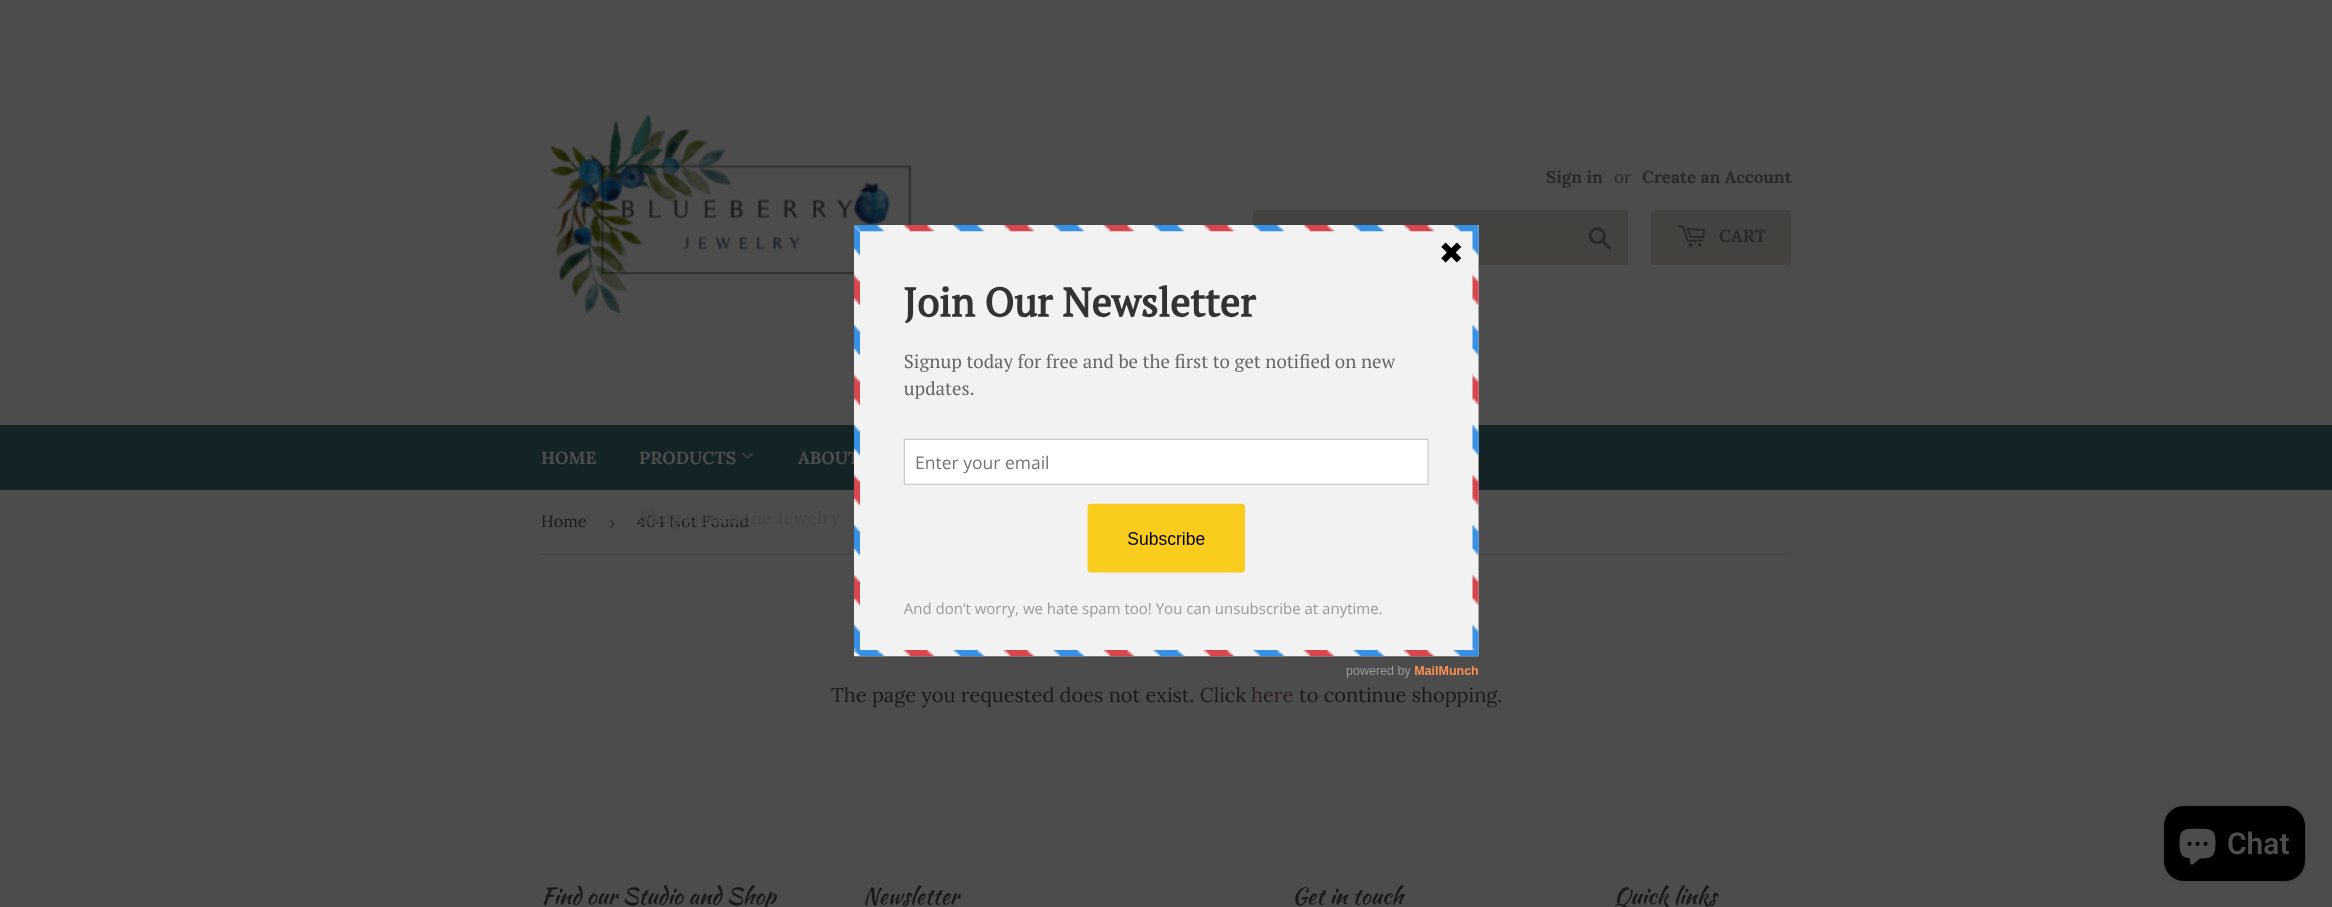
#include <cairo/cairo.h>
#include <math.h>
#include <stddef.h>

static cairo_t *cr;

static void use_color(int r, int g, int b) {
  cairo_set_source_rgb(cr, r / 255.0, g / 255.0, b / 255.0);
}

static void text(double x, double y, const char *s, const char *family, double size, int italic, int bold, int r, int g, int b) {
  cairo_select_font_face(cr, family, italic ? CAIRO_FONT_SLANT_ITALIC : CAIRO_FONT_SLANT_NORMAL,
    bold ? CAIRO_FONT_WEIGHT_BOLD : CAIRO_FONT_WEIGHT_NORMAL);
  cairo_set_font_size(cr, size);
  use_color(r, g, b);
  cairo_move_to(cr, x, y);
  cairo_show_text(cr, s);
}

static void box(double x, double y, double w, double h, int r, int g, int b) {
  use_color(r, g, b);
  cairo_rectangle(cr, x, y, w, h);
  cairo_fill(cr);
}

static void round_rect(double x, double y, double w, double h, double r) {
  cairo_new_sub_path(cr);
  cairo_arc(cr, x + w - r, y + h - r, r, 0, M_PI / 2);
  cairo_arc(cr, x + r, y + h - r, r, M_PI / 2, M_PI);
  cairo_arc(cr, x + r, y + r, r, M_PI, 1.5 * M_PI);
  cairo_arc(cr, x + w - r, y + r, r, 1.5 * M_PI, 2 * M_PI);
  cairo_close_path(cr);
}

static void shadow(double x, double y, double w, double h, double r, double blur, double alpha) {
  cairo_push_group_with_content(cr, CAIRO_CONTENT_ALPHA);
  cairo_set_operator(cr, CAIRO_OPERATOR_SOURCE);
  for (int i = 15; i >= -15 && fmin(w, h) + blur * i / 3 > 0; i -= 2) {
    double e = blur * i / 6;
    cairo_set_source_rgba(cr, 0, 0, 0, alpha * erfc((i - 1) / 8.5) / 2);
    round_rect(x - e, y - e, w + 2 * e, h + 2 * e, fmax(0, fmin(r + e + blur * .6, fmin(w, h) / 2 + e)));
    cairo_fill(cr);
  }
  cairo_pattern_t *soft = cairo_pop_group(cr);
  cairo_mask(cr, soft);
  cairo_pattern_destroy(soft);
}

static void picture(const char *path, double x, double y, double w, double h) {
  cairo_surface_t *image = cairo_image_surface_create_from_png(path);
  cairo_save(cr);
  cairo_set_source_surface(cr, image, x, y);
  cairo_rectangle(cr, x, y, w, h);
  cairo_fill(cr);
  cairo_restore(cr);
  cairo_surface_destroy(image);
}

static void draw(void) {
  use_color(76, 76, 76);
  cairo_paint(cr);
  picture("img_01.png", 550, 115, 362, 200);
  use_color(68, 66, 62);
  round_rect(1253, 210, 375, 55, 2.5);
  cairo_fill(cr);
  picture("img_02.png", 1588, 227, 24, 23);
  round_rect(1651, 210, 140, 55, 2.5);
  cairo_fill(cr);
  picture("img_03.png", 1677, 225, 29, 22);
  box(0, 425, 2332, 65, 20, 36, 38);
  picture("img_04.png", 742, 452, 11, 7);
  box(541, 554, 1250, 1, 67, 67, 67);
  use_color(0, 0, 0);
  shadow(2164, 806, 141, 75, 20, 3, 0.15);
  use_color(0, 0, 0);
  round_rect(2164, 806, 141, 75, 20);
  cairo_fill(cr);
  picture("img_06.png", 2179, 828, 37, 37);
  text(1546, 183, "Sign in", "Lora", 17, 0, 1, 40, 40, 40);
  text(1614, 183, "or", "Lora", 17, 0, 0, 40, 40, 40);
  text(1642, 183, "Create an Account", "Lora", 17, 0, 1, 40, 40, 40);
  text(1719, 242, "CART", "Lora", 17.5, 0, 1, 40, 40, 40);
  text(541, 464, "HOME", "Lora", 17.5, 0, 1, 77, 77, 77);
  text(639, 464, "PRODUCTS", "Lora", 17.5, 0, 1, 77, 77, 77);
  text(798, 464, "ABOUT", "Lora", 17.5, 0, 1, 77, 77, 77);
  picture("img_05.png", 854, 225, 625, 453);
  text(541, 527, "Home", "Lora", 16.25, 0, 0, 25, 25, 25);
  text(609, 529, "›", "Liberation Sans", 19, 0, 0, 40, 40, 40);
  text(637, 527, "404 Not Found", "Lora", 16.25, 0, 0, 25, 25, 25);
  text(640, 524, "Shop Gemstone Jewelry", "Lora", 17.5, 0, 1, 71, 70, 70);
  text(831, 702, "The page you requested does not exist. Click", "Lora", 20, 0, 0, 25, 25, 25);
  text(1251, 702, "here", "Lora", 20, 0, 0, 42, 30, 28);
  text(1299, 702, "to continue shopping.", "Lora", 20, 0, 0, 25, 25, 25);
  text(2227, 854, "Chat", "Roboto SemiBold", 30, 0, 0, 77, 77, 77);
  text(541, 904, "Find our Studio and Shop", "Kaushan Script", 22.75, 0, 0, 25, 25, 25);
  text(863, 904, "Newsletter", "Kaushan Script", 22.75, 0, 0, 25, 25, 25);
  text(1292, 904, "Get in touch", "Kaushan Script", 22.75, 0, 0, 25, 25, 25);
  text(1614, 904, "Quick links", "Kaushan Script", 22.75, 0, 0, 25, 25, 25);
}

int main(void) {
  cairo_surface_t *surface = cairo_image_surface_create(CAIRO_FORMAT_RGB24, 2332, 907);
  cr = cairo_create(surface);
  cairo_font_options_t *options = cairo_font_options_create();
  cairo_font_options_set_hint_metrics(options, CAIRO_HINT_METRICS_OFF);
  cairo_font_options_set_hint_style(options, CAIRO_HINT_STYLE_NONE);
  cairo_set_font_options(cr, options);
  cairo_set_miter_limit(cr, 4);
  draw();
  cairo_surface_write_to_png(surface, "out.png");
  cairo_font_options_destroy(options);
  cairo_destroy(cr);
  cairo_surface_destroy(surface);
  return 0;
}
